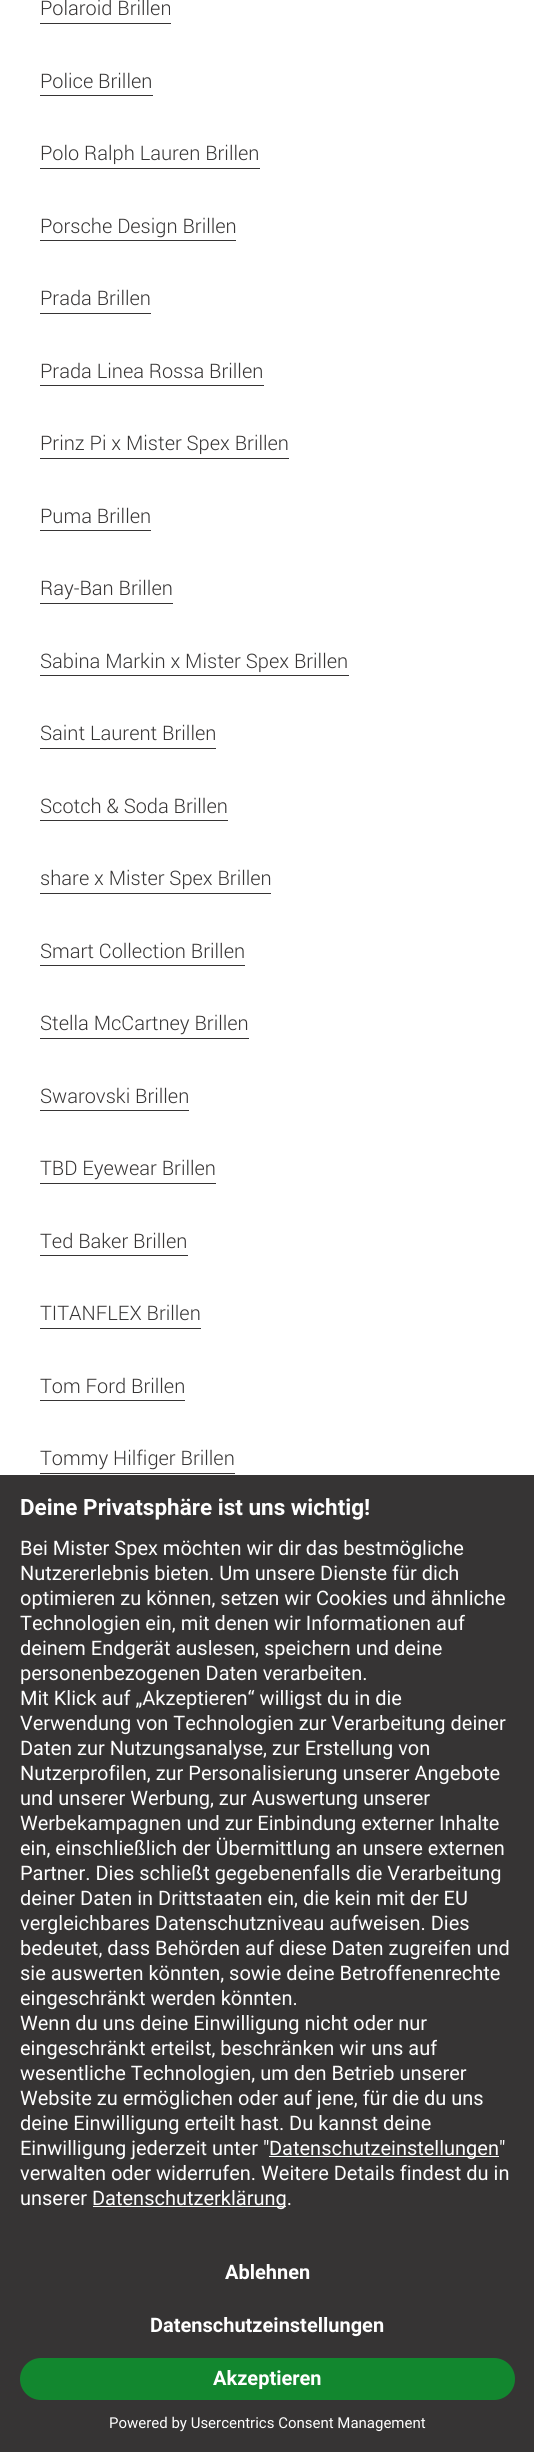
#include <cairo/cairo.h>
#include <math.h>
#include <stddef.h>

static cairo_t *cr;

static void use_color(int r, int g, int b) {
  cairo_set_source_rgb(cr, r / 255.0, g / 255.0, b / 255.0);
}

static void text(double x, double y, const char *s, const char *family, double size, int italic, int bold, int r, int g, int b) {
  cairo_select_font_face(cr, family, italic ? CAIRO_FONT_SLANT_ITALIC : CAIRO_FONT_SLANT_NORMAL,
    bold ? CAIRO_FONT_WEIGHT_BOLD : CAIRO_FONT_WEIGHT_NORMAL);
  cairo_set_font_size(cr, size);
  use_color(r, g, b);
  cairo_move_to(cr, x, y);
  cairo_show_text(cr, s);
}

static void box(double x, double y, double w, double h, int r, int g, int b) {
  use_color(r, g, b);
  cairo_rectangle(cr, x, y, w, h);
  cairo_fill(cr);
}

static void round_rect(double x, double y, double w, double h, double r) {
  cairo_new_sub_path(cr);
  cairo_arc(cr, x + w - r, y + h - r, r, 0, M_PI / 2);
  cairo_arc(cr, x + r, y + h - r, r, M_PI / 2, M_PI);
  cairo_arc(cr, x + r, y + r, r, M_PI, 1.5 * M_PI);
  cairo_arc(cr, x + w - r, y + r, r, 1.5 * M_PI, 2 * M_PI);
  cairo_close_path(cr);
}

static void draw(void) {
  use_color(255, 255, 255);
  cairo_paint(cr);
  box(40, 23, 131, 1, 54, 52, 52);
  box(40, 95, 113, 1, 54, 52, 52);
  box(40, 168, 220, 1, 54, 52, 52);
  box(40, 240, 196, 1, 54, 52, 52);
  box(40, 313, 111, 1, 54, 52, 52);
  box(40, 385, 224, 1, 54, 52, 52);
  box(40, 458, 249, 1, 54, 52, 52);
  box(40, 530, 111, 1, 54, 52, 52);
  box(40, 603, 133, 1, 54, 52, 52);
  box(40, 675, 309, 1, 54, 52, 52);
  box(40, 748, 176, 1, 54, 52, 52);
  box(40, 820, 188, 1, 54, 52, 52);
  box(40, 893, 231, 1, 54, 52, 52);
  box(40, 965, 205, 1, 54, 52, 52);
  box(40, 1038, 209, 1, 54, 52, 52);
  box(40, 1110, 149, 1, 54, 52, 52);
  box(40, 1183, 176, 1, 54, 52, 52);
  box(40, 1255, 148, 1, 54, 52, 52);
  box(40, 1328, 161, 1, 54, 52, 52);
  box(40, 1400, 145, 1, 54, 52, 52);
  box(40, 1473, 195, 1, 54, 52, 52);
  box(0, 1475, 534, 977, 54, 52, 52);
  box(269, 2156, 230, 1, 255, 255, 255);
  box(93, 2206, 193, 1, 255, 255, 255);
  use_color(18, 135, 47);
  round_rect(20, 2358, 495, 42, 21);
  cairo_fill(cr);
  text(40, 15, "Polaroid Brillen", "Roboto Light", 20, 0, 0, 54, 52, 52);
  text(40, 88, "Police Brillen", "Roboto Light", 20, 0, 0, 54, 52, 52);
  text(40, 160, "Polo Ralph Lauren Brillen", "Roboto Light", 20, 0, 0, 54, 52, 52);
  text(40, 233, "Porsche Design Brillen", "Roboto Light", 20, 0, 0, 54, 52, 52);
  text(40, 305, "Prada Brillen", "Roboto Light", 20, 0, 0, 54, 52, 52);
  text(40, 378, "Prada Linea Rossa Brillen", "Roboto Light", 20, 0, 0, 54, 52, 52);
  text(40, 450, "Prinz Pi x Mister Spex Brillen", "Roboto Light", 20, 0, 0, 54, 52, 52);
  text(40, 523, "Puma Brillen", "Roboto Light", 20, 0, 0, 54, 52, 52);
  text(40, 595, "Ray-Ban Brillen", "Roboto Light", 20, 0, 0, 54, 52, 52);
  text(40, 668, "Sabina Markin x Mister Spex Brillen", "Roboto Light", 20, 0, 0, 54, 52, 52);
  text(40, 740, "Saint Laurent Brillen", "Roboto Light", 20, 0, 0, 54, 52, 52);
  text(40, 813, "Scotch & Soda Brillen", "Roboto Light", 20, 0, 0, 54, 52, 52);
  text(40, 885, "share x Mister Spex Brillen", "Roboto Light", 20, 0, 0, 54, 52, 52);
  text(40, 958, "Smart Collection Brillen", "Roboto Light", 20, 0, 0, 54, 52, 52);
  text(40, 1030, "Stella McCartney Brillen", "Roboto Light", 20, 0, 0, 54, 52, 52);
  text(40, 1103, "Swarovski Brillen", "Roboto Light", 20, 0, 0, 54, 52, 52);
  text(40, 1175, "TBD Eyewear Brillen", "Roboto Light", 20, 0, 0, 54, 52, 52);
  text(40, 1248, "Ted Baker Brillen", "Roboto Light", 20, 0, 0, 54, 52, 52);
  text(40, 1320, "TITANFLEX Brillen", "Roboto Light", 20, 0, 0, 54, 52, 52);
  text(40, 1393, "Tom Ford Brillen", "Roboto Light", 20, 0, 0, 54, 52, 52);
  text(40, 1465, "Tommy Hilfiger Brillen", "Roboto Light", 20, 0, 0, 54, 52, 52);
  text(20, 1515, "Deine Privatsphäre ist uns wichtig!", "Roboto", 22.5, 0, 1, 255, 255, 255);
  text(20, 1555, "Bei Mister Spex möchten wir dir das bestmögliche", "Roboto", 20, 0, 0, 255, 255, 255);
  text(20, 1580, "Nutzererlebnis bieten. Um unsere Dienste für dich", "Roboto", 20, 0, 0, 255, 255, 255);
  text(20, 1605, "optimieren zu können, setzen wir Cookies und ähnliche", "Roboto", 20, 0, 0, 255, 255, 255);
  text(20, 1630, "Technologien ein, mit denen wir Informationen auf", "Roboto", 20, 0, 0, 255, 255, 255);
  text(20, 1655, "deinem Endgerät auslesen, speichern und deine", "Roboto", 20, 0, 0, 255, 255, 255);
  text(20, 1680, "personenbezogenen Daten verarbeiten.", "Roboto", 20, 0, 0, 255, 255, 255);
  text(20, 1705, "Mit Klick auf „Akzeptieren“ willigst du in die", "Roboto", 20, 0, 0, 255, 255, 255);
  text(20, 1730, "Verwendung von Technologien zur Verarbeitung deiner", "Roboto", 20, 0, 0, 255, 255, 255);
  text(20, 1755, "Daten zur Nutzungsanalyse, zur Erstellung von", "Roboto", 20, 0, 0, 255, 255, 255);
  text(20, 1780, "Nutzerprofilen, zur Personalisierung unserer Angebote", "Roboto", 20, 0, 0, 255, 255, 255);
  text(20, 1805, "und unserer Werbung, zur Auswertung unserer", "Roboto", 20, 0, 0, 255, 255, 255);
  text(20, 1830, "Werbekampagnen und zur Einbindung externer Inhalte", "Roboto", 20, 0, 0, 255, 255, 255);
  text(20, 1855, "ein, einschließlich der Übermittlung an unsere externen", "Roboto", 20, 0, 0, 255, 255, 255);
  text(20, 1880, "Partner. Dies schließt gegebenenfalls die Verarbeitung", "Roboto", 20, 0, 0, 255, 255, 255);
  text(20, 1905, "deiner Daten in Drittstaaten ein, die kein mit der EU", "Roboto", 20, 0, 0, 255, 255, 255);
  text(20, 1930, "vergleichbares Datenschutzniveau aufweisen. Dies", "Roboto", 20, 0, 0, 255, 255, 255);
  text(20, 1955, "bedeutet, dass Behörden auf diese Daten zugreifen und", "Roboto", 20, 0, 0, 255, 255, 255);
  text(20, 1980, "sie auswerten könnten, sowie deine Betroffenenrechte", "Roboto", 20, 0, 0, 255, 255, 255);
  text(20, 2005, "eingeschränkt werden könnten.", "Roboto", 20, 0, 0, 255, 255, 255);
  text(20, 2030, "Wenn du uns deine Einwilligung nicht oder nur", "Roboto", 20, 0, 0, 255, 255, 255);
  text(20, 2055, "eingeschränkt erteilst, beschränken wir uns auf", "Roboto", 20, 0, 0, 255, 255, 255);
  text(20, 2080, "wesentliche Technologien, um den Betrieb unserer", "Roboto", 20, 0, 0, 255, 255, 255);
  text(20, 2105, "Website zu ermöglichen oder auf jene, für die du uns", "Roboto", 20, 0, 0, 255, 255, 255);
  text(20, 2130, "deine Einwilligung erteilt hast. Du kannst deine", "Roboto", 20, 0, 0, 255, 255, 255);
  text(20, 2155, "Einwilligung jederzeit unter \"", "Roboto", 20, 0, 0, 255, 255, 255);
  text(269, 2155, "Datenschutzeinstellungen\"", "Roboto", 20, 0, 0, 255, 255, 255);
  text(20, 2180, "verwalten oder widerrufen. Weitere Details findest du in", "Roboto", 20, 0, 0, 255, 255, 255);
  text(20, 2205, "unserer", "Roboto", 20, 0, 0, 255, 255, 255);
  text(92, 2205, "Datenschutzerklärung.", "Roboto", 20, 0, 0, 255, 255, 255);
  text(225, 2279, "Ablehnen", "Roboto", 20, 0, 1, 255, 255, 255);
  text(150, 2332, "Datenschutzeinstellungen", "Roboto", 20, 0, 1, 255, 255, 255);
  text(213, 2385, "Akzeptieren", "Roboto", 20, 0, 1, 255, 255, 255);
  text(109, 2428, "Powered by Usercentrics Consent Management", "Roboto", 15, 0, 0, 255, 255, 255);
}

int main(void) {
  cairo_surface_t *surface = cairo_image_surface_create(CAIRO_FORMAT_RGB24, 534, 2452);
  cr = cairo_create(surface);
  cairo_font_options_t *options = cairo_font_options_create();
  cairo_font_options_set_hint_metrics(options, CAIRO_HINT_METRICS_OFF);
  cairo_font_options_set_hint_style(options, CAIRO_HINT_STYLE_NONE);
  cairo_set_font_options(cr, options);
  cairo_set_miter_limit(cr, 4);
  draw();
  cairo_surface_write_to_png(surface, "out.png");
  cairo_font_options_destroy(options);
  cairo_destroy(cr);
  cairo_surface_destroy(surface);
  return 0;
}
